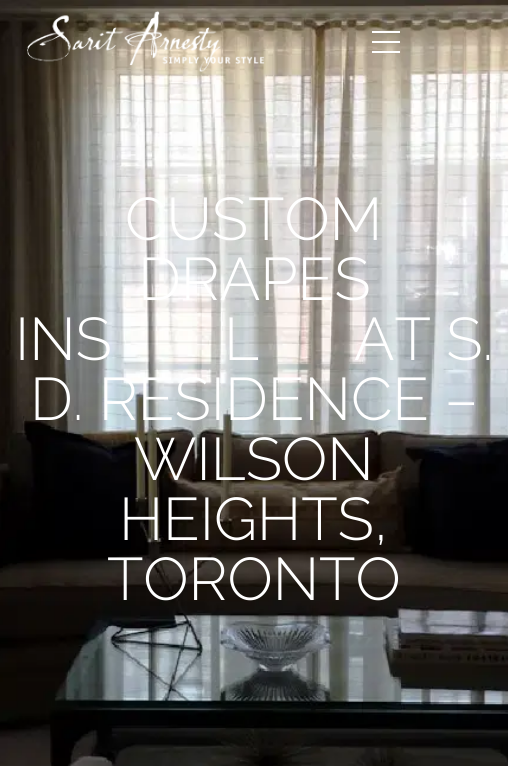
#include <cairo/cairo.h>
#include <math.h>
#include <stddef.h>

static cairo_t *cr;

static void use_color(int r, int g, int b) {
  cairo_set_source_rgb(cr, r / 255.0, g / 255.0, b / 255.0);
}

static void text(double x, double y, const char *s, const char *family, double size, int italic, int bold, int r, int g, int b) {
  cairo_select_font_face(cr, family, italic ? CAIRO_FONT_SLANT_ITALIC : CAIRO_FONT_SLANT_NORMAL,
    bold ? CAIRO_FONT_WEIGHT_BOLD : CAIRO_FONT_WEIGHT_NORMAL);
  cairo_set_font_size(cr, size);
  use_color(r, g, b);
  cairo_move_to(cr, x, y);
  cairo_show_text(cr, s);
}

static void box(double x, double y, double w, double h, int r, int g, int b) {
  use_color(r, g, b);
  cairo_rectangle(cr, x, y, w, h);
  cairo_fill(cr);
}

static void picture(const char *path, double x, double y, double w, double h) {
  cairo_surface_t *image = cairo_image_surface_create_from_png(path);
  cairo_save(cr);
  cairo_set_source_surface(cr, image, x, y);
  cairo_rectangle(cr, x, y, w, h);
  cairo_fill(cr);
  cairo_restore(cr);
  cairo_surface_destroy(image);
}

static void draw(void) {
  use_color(255, 255, 255);
  cairo_paint(cr);
  picture("img_02.png", 0, 0, 508, 766);
  picture("img_01.png", 26, 11, 239, 61);
  box(372, 41, 28, 2, 254, 254, 254);
  box(372, 31, 28, 2, 254, 254, 254);
  box(372, 51, 28, 2, 254, 254, 254);
  text(125, 240, "CUSTOM", "Raleway Light", 60, 0, 0, 255, 255, 255);
  text(138, 300, "DRAPES", "Raleway Light", 60, 0, 0, 255, 255, 255);
  text(15, 360, "INS", "Raleway Light", 60, 0, 0, 255, 255, 255);
  text(224, 360, "L", "Raleway Light", 60, 0, 0, 255, 255, 255);
  text(354, 360, "AT S.", "Raleway Light", 60, 0, 0, 255, 255, 255);
  text(30, 420, "D. RESIDENCE –", "Raleway Light", 60, 0, 0, 255, 255, 255);
  text(134, 480, "WILSON", "Raleway Light", 60, 0, 0, 255, 255, 255);
  text(119, 540, "HEIGHTS,", "Raleway Light", 60, 0, 0, 255, 255, 255);
  text(107, 600, "TORONTO", "Raleway Light", 60, 0, 0, 255, 255, 255);
}

int main(void) {
  cairo_surface_t *surface = cairo_image_surface_create(CAIRO_FORMAT_RGB24, 508, 766);
  cr = cairo_create(surface);
  cairo_font_options_t *options = cairo_font_options_create();
  cairo_font_options_set_hint_metrics(options, CAIRO_HINT_METRICS_OFF);
  cairo_font_options_set_hint_style(options, CAIRO_HINT_STYLE_NONE);
  cairo_set_font_options(cr, options);
  cairo_set_miter_limit(cr, 4);
  draw();
  cairo_surface_write_to_png(surface, "out.png");
  cairo_font_options_destroy(options);
  cairo_destroy(cr);
  cairo_surface_destroy(surface);
  return 0;
}
